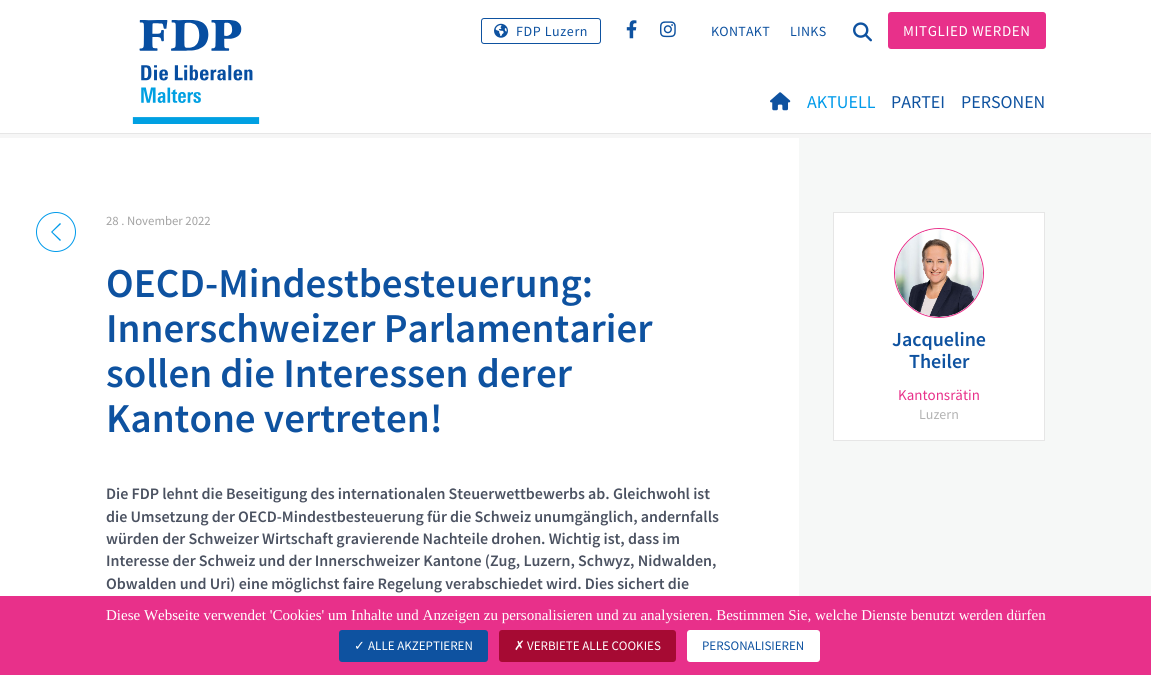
#include <cairo/cairo.h>
#include <math.h>
#include <stddef.h>

static cairo_t *cr;

static void use_color(int r, int g, int b) {
  cairo_set_source_rgb(cr, r / 255.0, g / 255.0, b / 255.0);
}

static void text(double x, double y, const char *s, const char *family, double size, int italic, int bold, int r, int g, int b) {
  cairo_select_font_face(cr, family, italic ? CAIRO_FONT_SLANT_ITALIC : CAIRO_FONT_SLANT_NORMAL,
    bold ? CAIRO_FONT_WEIGHT_BOLD : CAIRO_FONT_WEIGHT_NORMAL);
  cairo_set_font_size(cr, size);
  use_color(r, g, b);
  cairo_move_to(cr, x, y);
  cairo_show_text(cr, s);
}

static void spaced_text(double x, double y, const char *s, double letter, double word) {
  cairo_move_to(cr, x, y);
  while (*s) {
    char ch[5] = {0};
    int n = 0;
    do ch[n++] = *s++; while ((*s & 0xC0) == 0x80);
    cairo_show_text(cr, ch);
    cairo_rel_move_to(cr, letter + word * (*ch == ' '), 0);
  }
}

static void box(double x, double y, double w, double h, int r, int g, int b) {
  use_color(r, g, b);
  cairo_rectangle(cr, x, y, w, h);
  cairo_fill(cr);
}

static void round_rect(double x, double y, double w, double h, double r) {
  cairo_new_sub_path(cr);
  cairo_arc(cr, x + w - r, y + h - r, r, 0, M_PI / 2);
  cairo_arc(cr, x + r, y + h - r, r, M_PI / 2, M_PI);
  cairo_arc(cr, x + r, y + r, r, M_PI, 1.5 * M_PI);
  cairo_arc(cr, x + w - r, y + r, r, 1.5 * M_PI, 2 * M_PI);
  cairo_close_path(cr);
}

static void picture(const char *path, double x, double y, double w, double h) {
  cairo_surface_t *image = cairo_image_surface_create_from_png(path);
  cairo_save(cr);
  cairo_set_source_surface(cr, image, x, y);
  cairo_rectangle(cr, x, y, w, h);
  cairo_fill(cr);
  cairo_restore(cr);
  cairo_surface_destroy(image);
}

static void draw(void) {
  cairo_pattern_t *gradient;
  use_color(255, 255, 255);
  cairo_paint(cr);
  gradient = cairo_pattern_create_linear(575, 0, 576, 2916);
  cairo_pattern_add_color_stop_rgba(gradient, 0, 0.973, 0.973, 0.973, 1);
  cairo_pattern_add_color_stop_rgba(gradient, 1, 0.835, 0.835, 0.835, 1);
  cairo_set_source(cr, gradient);
  cairo_pattern_destroy(gradient);
  cairo_rectangle(cr, 0, 134, 1151, 4);
  cairo_fill(cr);
  box(0, 133, 1151, 1, 230, 230, 230);
  picture("img_01.png", 132, 20, 128, 104);
  round_rect(481.5, 18.5, 119, 25, 2.5);
  use_color(14, 82, 160);
  cairo_set_line_width(cr, 1);
  cairo_stroke(cr);
  picture("img_02.png", 494, 23, 14, 15);
  picture("img_03.png", 626, 20, 11, 19);
  picture("img_04.png", 660, 21, 16, 17);
  picture("img_05.png", 853, 22, 19, 20);
  use_color(232, 48, 138);
  round_rect(888, 12, 158, 37, 3);
  cairo_fill(cr);
  picture("img_06.png", 770, 92, 21, 19);
  box(799, 138, 352, 458, 246, 248, 247);
  cairo_arc(cr, 56, 232, 19.5, 0, 2 * M_PI);
  use_color(0, 154, 234);
  cairo_stroke(cr);
  cairo_new_path(cr);
  cairo_move_to(cr, 51, 232);
  cairo_line_to(cr, 60, 223);
  cairo_line_to(cr, 61, 224);
  cairo_line_to(cr, 52.5, 232);
  cairo_line_to(cr, 61, 240);
  cairo_line_to(cr, 60, 241);
  cairo_close_path(cr);
  cairo_fill(cr);
  use_color(255, 255, 255);
  cairo_rectangle(cr, 833.5, 212.5, 211, 228);
  cairo_fill_preserve(cr);
  use_color(230, 230, 230);
  cairo_stroke(cr);
  cairo_arc(cr, 939, 273, 44.5, 0, 2 * M_PI);
  use_color(232, 48, 138);
  cairo_stroke(cr);
  picture("img_07.png", 895, 229, 88, 88);
  box(0, 596, 1151, 79, 232, 48, 138);
  use_color(14, 82, 160);
  round_rect(339, 630, 149, 32, 3);
  cairo_fill(cr);
  use_color(166, 10, 51);
  round_rect(499, 630, 177, 32, 3);
  cairo_fill(cr);
  use_color(255, 255, 255);
  round_rect(687, 630, 133, 32, 3);
  cairo_fill(cr);
  cairo_select_font_face(cr, "Source Sans Pro", CAIRO_FONT_SLANT_NORMAL, CAIRO_FONT_WEIGHT_NORMAL);
  cairo_set_font_size(cr, 14);
  use_color(14, 82, 160);
  spaced_text(516, 36, "FDP Luzern", 0.6, 0);
  spaced_text(711, 36, "KONTAKT", 0.25, 0);
  spaced_text(790, 36, "LINKS", 0.25, 0);
  cairo_set_font_size(cr, 15);
  use_color(255, 255, 255);
  spaced_text(903, 36, "MITGLIED WERDEN", 0.6, 0);
  text(807, 108, "AKTUELL", "Source Sans Pro", 18, 0, 0, 0, 154, 234);
  text(891, 108, "PARTEI", "Source Sans Pro", 18, 0, 0, 14, 82, 160);
  text(961, 108, "PERSONEN", "Source Sans Pro", 18, 0, 0, 14, 82, 160);
  text(106, 225, "28 . November 2022", "Source Sans Pro", 12.75, 0, 0, 163, 163, 163);
  text(106, 297, "OECD-Mindestbesteuerung:", "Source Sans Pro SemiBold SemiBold", 41, 0, 0, 14, 82, 160);
  text(106, 342, "Innerschweizer Parlamentarier", "Source Sans Pro SemiBold SemiBold", 41, 0, 0, 14, 82, 160);
  text(106, 387, "sollen die Interessen derer", "Source Sans Pro SemiBold SemiBold", 41, 0, 0, 14, 82, 160);
  text(106, 432, "Kantone vertreten!", "Source Sans Pro SemiBold SemiBold", 41, 0, 0, 14, 82, 160);
  text(106, 499, "Die FDP lehnt die Beseitigung des internationalen Steuerwettbewerbs ab. Gleichwohl ist", "Source Sans Pro SemiBold SemiBold", 16, 0, 0, 75, 82, 97);
  text(106, 522, "die Umsetzung der OECD-Mindestbesteuerung für die Schweiz unumgänglich, andernfalls", "Source Sans Pro SemiBold SemiBold", 16, 0, 0, 75, 82, 97);
  text(106, 544, "würden der Schweizer Wirtschaft gravierende Nachteile drohen. Wichtig ist, dass im", "Source Sans Pro SemiBold SemiBold", 16, 0, 0, 75, 82, 97);
  text(106, 566, "Interesse der Schweiz und der Innerschweizer Kantone (Zug, Luzern, Schwyz, Nidwalden,", "Source Sans Pro SemiBold SemiBold", 16, 0, 0, 75, 82, 97);
  text(106, 589, "Obwalden und Uri) eine möglichst faire Regelung verabschiedet wird. Dies sichert die", "Source Sans Pro SemiBold SemiBold", 16, 0, 0, 75, 82, 97);
  text(892, 346, "Jacqueline", "Source Sans Pro SemiBold SemiBold", 20, 0, 0, 14, 82, 160);
  text(909, 368, "Theiler", "Source Sans Pro SemiBold SemiBold", 20, 0, 0, 14, 82, 160);
  text(898, 400, "Kantonsrätin", "Source Sans Pro", 15, 0, 0, 232, 48, 138);
  text(919, 419, "Luzern", "Source Sans Pro", 14, 0, 0, 179, 179, 179);
  text(106, 620, "Diese Webseite verwendet 'Cookies' um Inhalte und Anzeigen zu personalisieren und zu analysieren. Bestimmen Sie, welche Dienste benutzt werden dürfen", "Liberation Serif", 15, 0, 0, 255, 255, 255);
  text(354, 650, "✓", "DejaVu Sans", 13, 0, 0, 255, 255, 255);
  text(368, 650, "ALLE AKZEPTIEREN", "Source Sans Pro", 13, 0, 0, 255, 255, 255);
  text(514, 650, "✗", "DejaVu Sans", 13, 0, 0, 255, 255, 255);
  text(527, 650, "VERBIETE ALLE COOKIES", "Source Sans Pro", 13, 0, 0, 255, 255, 255);
  text(702, 650, "PERSONALISIEREN", "Source Sans Pro", 13, 0, 0, 14, 82, 160);
}

int main(void) {
  cairo_surface_t *surface = cairo_image_surface_create(CAIRO_FORMAT_RGB24, 1151, 675);
  cr = cairo_create(surface);
  cairo_font_options_t *options = cairo_font_options_create();
  cairo_font_options_set_hint_metrics(options, CAIRO_HINT_METRICS_OFF);
  cairo_font_options_set_hint_style(options, CAIRO_HINT_STYLE_NONE);
  cairo_set_font_options(cr, options);
  cairo_set_miter_limit(cr, 4);
  draw();
  cairo_surface_write_to_png(surface, "out.png");
  cairo_font_options_destroy(options);
  cairo_destroy(cr);
  cairo_surface_destroy(surface);
  return 0;
}
